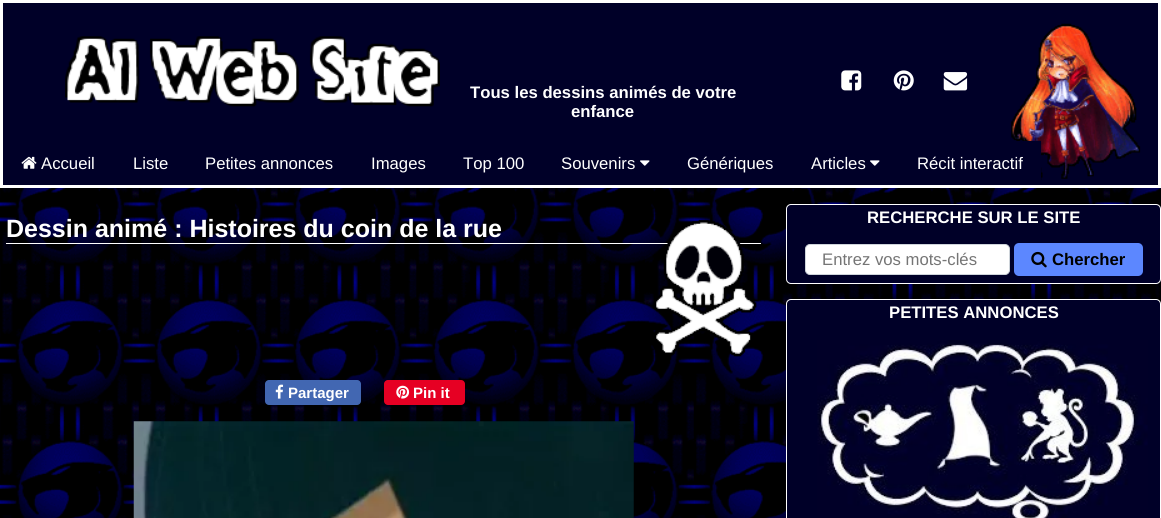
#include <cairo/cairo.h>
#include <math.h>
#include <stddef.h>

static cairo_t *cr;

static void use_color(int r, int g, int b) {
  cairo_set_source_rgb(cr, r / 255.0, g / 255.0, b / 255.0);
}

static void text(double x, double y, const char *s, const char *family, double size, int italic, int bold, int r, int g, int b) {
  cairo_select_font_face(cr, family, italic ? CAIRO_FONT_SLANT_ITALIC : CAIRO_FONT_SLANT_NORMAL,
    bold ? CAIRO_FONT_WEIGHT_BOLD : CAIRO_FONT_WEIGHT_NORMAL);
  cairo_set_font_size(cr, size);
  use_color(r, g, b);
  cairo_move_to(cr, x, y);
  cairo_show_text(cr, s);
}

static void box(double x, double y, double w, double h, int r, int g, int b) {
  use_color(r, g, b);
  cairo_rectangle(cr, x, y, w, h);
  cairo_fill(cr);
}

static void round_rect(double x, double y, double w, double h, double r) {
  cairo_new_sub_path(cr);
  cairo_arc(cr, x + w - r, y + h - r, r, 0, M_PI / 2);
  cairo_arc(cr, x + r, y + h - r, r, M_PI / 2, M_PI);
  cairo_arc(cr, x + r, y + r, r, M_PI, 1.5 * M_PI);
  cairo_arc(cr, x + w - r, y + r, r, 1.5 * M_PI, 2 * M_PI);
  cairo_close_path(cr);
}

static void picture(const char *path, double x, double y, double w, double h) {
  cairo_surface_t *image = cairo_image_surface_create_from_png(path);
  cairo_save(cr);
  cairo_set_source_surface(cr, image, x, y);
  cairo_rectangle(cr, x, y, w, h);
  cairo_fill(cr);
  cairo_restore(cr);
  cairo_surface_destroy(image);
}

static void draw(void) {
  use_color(255, 255, 255);
  cairo_paint(cr);
  picture("img_01.png", 0, 188, 1161, 330);
  box(3, 3, 1155, 182, 0, 0, 40);
  picture("img_02.png", 65, 36, 375, 71);
  picture("img_03.png", 21, 156, 16, 13);
  picture("img_04.png", 640, 160, 10, 6);
  picture("img_04.png", 870, 160, 10, 6);
  picture("img_12.png", 1011, 23, 130, 158);
  box(1016, 141, 25, 40, 0, 0, 40);
  box(6, 243, 755, 1, 255, 255, 255);
  picture("img_05.png", 655, 219, 102, 138);
  use_color(66, 103, 178);
  round_rect(265, 380, 96, 25, 4);
  cairo_fill(cr);
  picture("img_06.png", 275, 384, 9, 15);
  use_color(230, 0, 35);
  round_rect(384, 380, 81, 25, 4);
  cairo_fill(cr);
  picture("img_07.png", 396, 385, 14, 14);
  picture("img_08.png", 133, 421, 501, 97);
  picture("img_09.png", 841, 70, 21, 21);
  picture("img_10.png", 893, 70, 21, 21);
  picture("img_11.png", 943, 72, 25, 19);
  use_color(0, 0, 40);
  round_rect(786.5, 204.5, 374, 79, 4.5);
  cairo_fill_preserve(cr);
  use_color(255, 255, 255);
  cairo_set_line_width(cr, 1);
  cairo_stroke(cr);
  round_rect(805.5, 244.5, 204, 30, 4.5);
  cairo_fill_preserve(cr);
  use_color(206, 212, 218);
  cairo_stroke(cr);
  use_color(92, 135, 255);
  round_rect(1014, 243, 129, 33, 5);
  cairo_fill(cr);
  picture("img_13.png", 1031, 251, 16, 17);
  use_color(0, 0, 40);
  round_rect(786.5, 299.5, 374, 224, 4.5);
  cairo_fill_preserve(cr);
  use_color(255, 255, 255);
  cairo_stroke(cr);
  picture("img_14.png", 817, 340, 331, 178);
  text(470, 98, "Tous les dessins animés de votre", "Liberation Sans", 16.7, 0, 1, 255, 255, 255);
  text(571, 117, "enfance", "Liberation Sans", 16.7, 0, 1, 255, 255, 255);
  text(41, 169, "Accueil", "Liberation Sans", 16.7, 0, 0, 255, 255, 255);
  text(133, 169, "Liste", "Liberation Sans", 16.7, 0, 0, 255, 255, 255);
  text(205, 169, "Petites annonces", "Liberation Sans", 16.7, 0, 0, 255, 255, 255);
  text(371, 169, "Images", "Liberation Sans", 16.7, 0, 0, 255, 255, 255);
  text(463, 169, "Top 100", "Liberation Sans", 16.7, 0, 0, 255, 255, 255);
  text(561, 169, "Souvenirs", "Liberation Sans", 16.7, 0, 0, 255, 255, 255);
  text(687, 169, "Génériques", "Liberation Sans", 16.7, 0, 0, 255, 255, 255);
  text(811, 169, "Articles", "Liberation Sans", 16.7, 0, 0, 255, 255, 255);
  text(917, 169, "Récit interactif", "Liberation Sans", 16.7, 0, 0, 255, 255, 255);
  text(6, 237, "Dessin animé : Histoires du coin de la rue", "Liberation Sans", 25, 0, 1, 255, 255, 255);
  text(288, 398, "Partager", "Liberation Sans", 15, 0, 1, 255, 255, 255);
  text(413, 398, "Pin it", "Liberation Sans", 15, 0, 1, 255, 255, 255);
  text(867, 223, "RECHERCHE SUR LE SITE", "Liberation Sans", 16.7, 0, 1, 255, 255, 255);
  text(822, 265, "Entrez vos mots-clés", "Liberation Sans", 16.7, 0, 0, 117, 117, 117);
  text(1052, 265, "Chercher", "Liberation Sans", 16.7, 0, 1, 0, 0, 0);
  text(889, 318, "PETITES ANNONCES", "Liberation Sans", 16.7, 0, 1, 255, 255, 255);
}

int main(void) {
  cairo_surface_t *surface = cairo_image_surface_create(CAIRO_FORMAT_RGB24, 1161, 518);
  cr = cairo_create(surface);
  cairo_font_options_t *options = cairo_font_options_create();
  cairo_font_options_set_hint_metrics(options, CAIRO_HINT_METRICS_OFF);
  cairo_font_options_set_hint_style(options, CAIRO_HINT_STYLE_NONE);
  cairo_set_font_options(cr, options);
  cairo_set_miter_limit(cr, 4);
  draw();
  cairo_surface_write_to_png(surface, "out.png");
  cairo_font_options_destroy(options);
  cairo_destroy(cr);
  cairo_surface_destroy(surface);
  return 0;
}
